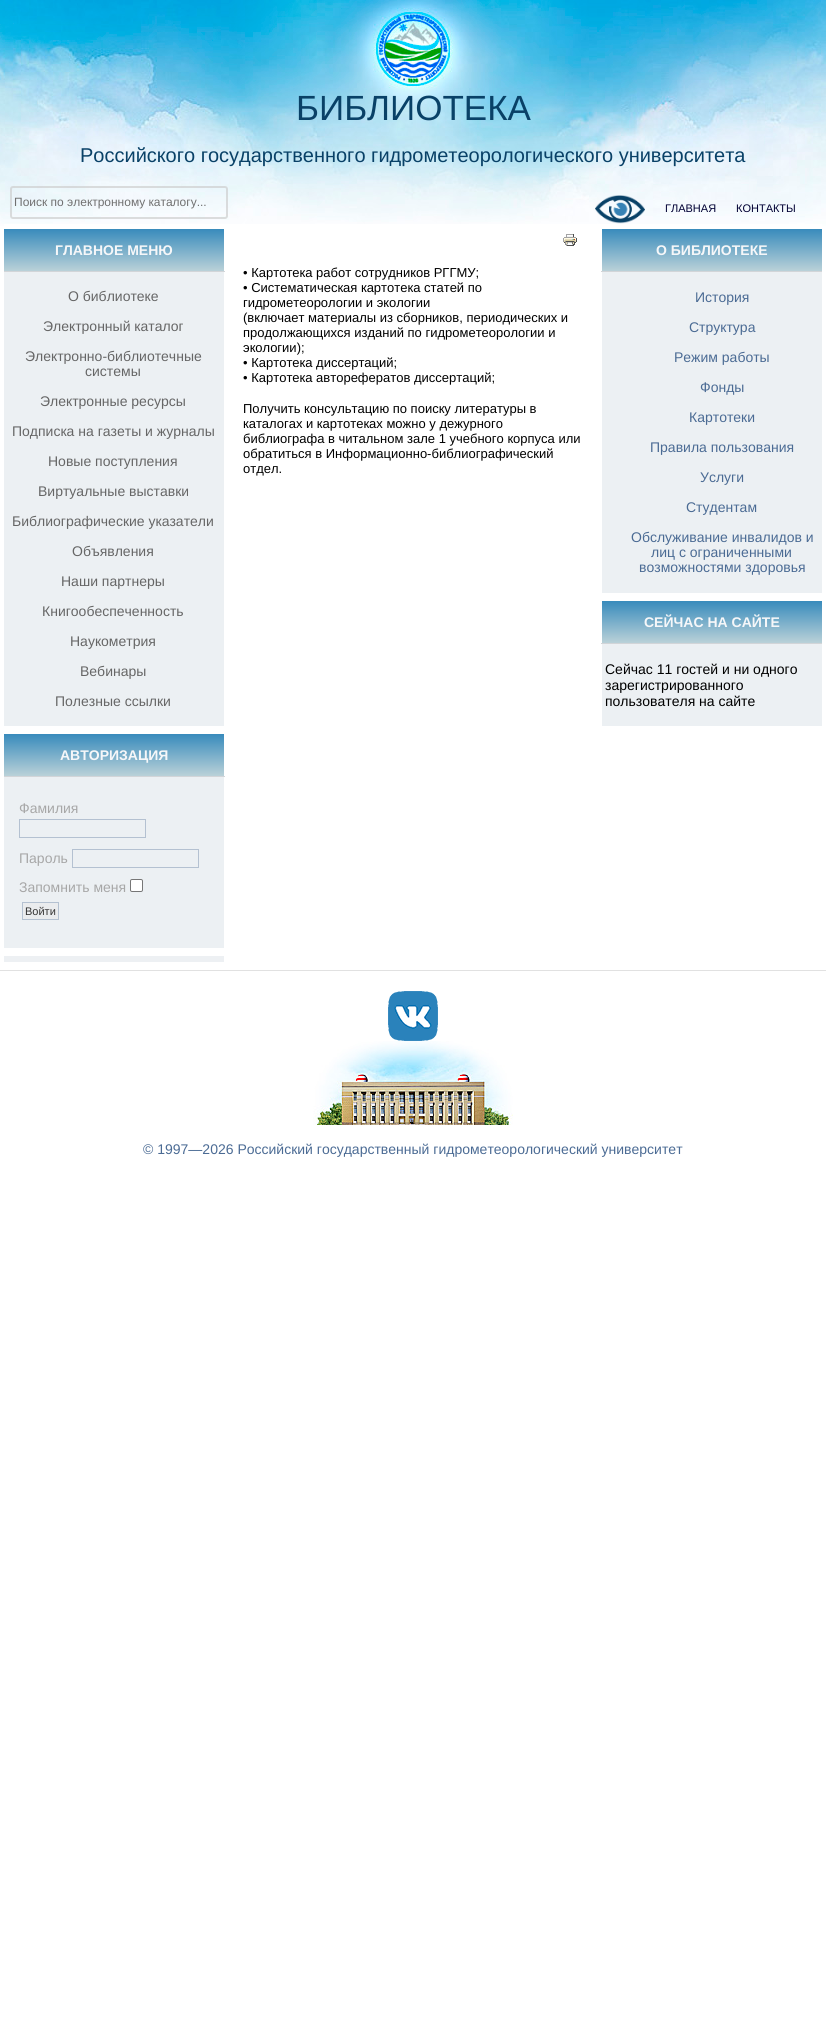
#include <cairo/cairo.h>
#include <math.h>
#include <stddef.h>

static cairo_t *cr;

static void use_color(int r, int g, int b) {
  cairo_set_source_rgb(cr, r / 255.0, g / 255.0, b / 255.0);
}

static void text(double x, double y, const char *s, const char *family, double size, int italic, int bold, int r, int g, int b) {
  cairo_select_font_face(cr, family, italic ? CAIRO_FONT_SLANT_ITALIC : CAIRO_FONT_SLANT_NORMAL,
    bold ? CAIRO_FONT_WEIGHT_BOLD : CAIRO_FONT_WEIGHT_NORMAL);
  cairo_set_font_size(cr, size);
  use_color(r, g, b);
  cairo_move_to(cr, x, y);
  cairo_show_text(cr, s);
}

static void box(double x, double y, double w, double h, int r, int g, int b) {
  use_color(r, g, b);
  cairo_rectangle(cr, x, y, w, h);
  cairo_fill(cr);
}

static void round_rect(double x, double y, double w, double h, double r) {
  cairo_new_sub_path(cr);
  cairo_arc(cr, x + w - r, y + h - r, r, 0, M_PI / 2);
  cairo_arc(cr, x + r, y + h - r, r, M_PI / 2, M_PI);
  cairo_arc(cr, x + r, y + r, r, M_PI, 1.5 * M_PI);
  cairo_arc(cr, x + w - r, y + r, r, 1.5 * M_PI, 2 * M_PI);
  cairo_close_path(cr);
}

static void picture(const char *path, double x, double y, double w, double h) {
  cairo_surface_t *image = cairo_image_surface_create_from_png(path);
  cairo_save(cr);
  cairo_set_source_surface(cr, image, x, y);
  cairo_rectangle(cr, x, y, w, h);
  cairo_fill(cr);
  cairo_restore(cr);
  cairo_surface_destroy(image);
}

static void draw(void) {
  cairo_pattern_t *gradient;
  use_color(255, 255, 255);
  cairo_paint(cr);
  picture("img_01.png", 0, 0, 826, 226);
  round_rect(11, 187, 216, 31, 2);
  cairo_set_source_rgba(cr, 0.8, 0.8, 0.8, 0.67);
  cairo_stroke(cr);
  picture("img_02.png", 595, 195, 50, 29);
  box(4, 224, 818, 2, 255, 255, 255);
  gradient = cairo_pattern_create_linear(114, 271, 114, 229);
  cairo_pattern_add_color_stop_rgba(gradient, 0, 0.729, 0.82, 0.847, 1);
  cairo_pattern_add_color_stop_rgba(gradient, 1, 0.22, 0.545, 0.737, 1);
  cairo_set_source(cr, gradient);
  cairo_pattern_destroy(gradient);
  cairo_rectangle(cr, 4, 229, 220, 42);
  cairo_fill(cr);
  box(4, 271, 221, 1, 210, 213, 216);
  box(4, 272, 220, 454, 236, 240, 243);
  gradient = cairo_pattern_create_linear(114, 776, 114, 734);
  cairo_pattern_add_color_stop_rgba(gradient, 0, 0.729, 0.82, 0.847, 1);
  cairo_pattern_add_color_stop_rgba(gradient, 1, 0.22, 0.545, 0.737, 1);
  cairo_set_source(cr, gradient);
  cairo_pattern_destroy(gradient);
  cairo_rectangle(cr, 4, 734, 220, 42);
  cairo_fill(cr);
  box(4, 776, 221, 1, 210, 213, 216);
  box(4, 777, 220, 171, 236, 240, 243);
  cairo_rectangle(cr, 19.5, 819.5, 126, 18);
  use_color(180, 193, 209);
  cairo_set_line_width(cr, 1);
  cairo_stroke(cr);
  cairo_rectangle(cr, 72.5, 849.5, 126, 18);
  cairo_stroke(cr);
  use_color(255, 255, 255);
  round_rect(130.5, 879.5, 12, 12, 1.5);
  cairo_fill_preserve(cr);
  use_color(118, 118, 118);
  cairo_stroke(cr);
  use_color(234, 236, 238);
  cairo_rectangle(cr, 22.5, 902.5, 36, 17);
  cairo_fill_preserve(cr);
  use_color(180, 193, 209);
  cairo_stroke(cr);
  box(4, 956, 220, 6, 237, 240, 243);
  picture("img_03.png", 563, 234, 14, 12);
  gradient = cairo_pattern_create_linear(712, 271, 712, 229);
  cairo_pattern_add_color_stop_rgba(gradient, 0, 0.729, 0.82, 0.847, 1);
  cairo_pattern_add_color_stop_rgba(gradient, 1, 0.22, 0.545, 0.737, 1);
  cairo_set_source(cr, gradient);
  cairo_pattern_destroy(gradient);
  cairo_rectangle(cr, 602, 229, 220, 42);
  cairo_fill(cr);
  box(601, 271, 221, 1, 210, 213, 216);
  box(602, 272, 220, 321, 236, 240, 243);
  gradient = cairo_pattern_create_linear(712, 643, 712, 601);
  cairo_pattern_add_color_stop_rgba(gradient, 0, 0.729, 0.82, 0.847, 1);
  cairo_pattern_add_color_stop_rgba(gradient, 1, 0.22, 0.545, 0.737, 1);
  cairo_set_source(cr, gradient);
  cairo_pattern_destroy(gradient);
  cairo_rectangle(cr, 602, 601, 220, 42);
  cairo_fill(cr);
  box(601, 643, 221, 1, 210, 213, 216);
  box(602, 644, 220, 82, 236, 240, 243);
  box(0, 970, 826, 1, 225, 225, 225);
  picture("img_04.png", 388, 991, 50, 50);
  picture("img_05.png", 313, 1041, 200, 84);
  text(296, 120, "БИБЛИОТЕКА", "Liberation Sans", 35, 0, 0, 9, 65, 103);
  text(80, 162, "Российского государственного гидрометеорологического университета", "Liberation Sans", 20, 0, 0, 9, 65, 103);
  text(14, 206, "Поиск по электронному каталогу...", "Liberation Sans", 12, 0, 0, 112, 112, 112);
  text(665, 212, "ГЛАВНАЯ", "Liberation Sans", 11, 0, 0, 0, 0, 51);
  text(736, 212, "КОНТАКТЫ", "Liberation Sans", 11, 0, 0, 0, 0, 51);
  text(55, 255, "ГЛАВНОЕ МЕНЮ", "Liberation Sans", 14, 0, 1, 246, 247, 249);
  text(68, 301, "О библиотеке", "Liberation Sans", 14, 0, 0, 102, 102, 102);
  text(43, 331, "Электронный каталог", "Liberation Sans", 14, 0, 0, 102, 102, 102);
  text(25, 361, "Электронно-библиотечные", "Liberation Sans", 14, 0, 0, 102, 102, 102);
  text(85, 376, "системы", "Liberation Sans", 14, 0, 0, 102, 102, 102);
  text(40, 406, "Электронные ресурсы", "Liberation Sans", 14, 0, 0, 102, 102, 102);
  text(12, 436, "Подписка на газеты и журналы", "Liberation Sans", 14, 0, 0, 102, 102, 102);
  text(48, 466, "Новые поступления", "Liberation Sans", 14, 0, 0, 102, 102, 102);
  text(38, 496, "Виртуальные выставки", "Liberation Sans", 14, 0, 0, 102, 102, 102);
  text(12, 526, "Библиографические указатели", "Liberation Sans", 14, 0, 0, 102, 102, 102);
  text(72, 556, "Объявления", "Liberation Sans", 14, 0, 0, 102, 102, 102);
  text(61, 586, "Наши партнеры", "Liberation Sans", 14, 0, 0, 102, 102, 102);
  text(42, 616, "Книгообеспеченность", "Liberation Sans", 14, 0, 0, 102, 102, 102);
  text(70, 646, "Наукометрия", "Liberation Sans", 14, 0, 0, 102, 102, 102);
  text(80, 676, "Вебинары", "Liberation Sans", 14, 0, 0, 102, 102, 102);
  text(55, 706, "Полезные ссылки", "Liberation Sans", 14, 0, 0, 102, 102, 102);
  text(60, 760, "АВТОРИЗАЦИЯ", "Liberation Sans", 14, 0, 1, 246, 247, 249);
  text(19, 813, "Фамилия", "Liberation Sans", 14, 0, 0, 167, 167, 167);
  text(19, 863, "Пароль", "Liberation Sans", 14, 0, 0, 167, 167, 167);
  text(19, 892, "Запомнить меня", "Liberation Sans", 14, 0, 0, 167, 167, 167);
  text(25, 915, "Войти", "Liberation Sans", 11, 0, 0, 51, 51, 51);
  text(243, 277, "• Картотека работ сотрудников РГГМУ;", "Liberation Sans", 13, 0, 0, 0, 0, 0);
  text(243, 292, "• Систематическая картотека статей по", "Liberation Sans", 13, 0, 0, 0, 0, 0);
  text(243, 307, "гидрометеорологии и экологии", "Liberation Sans", 13, 0, 0, 0, 0, 0);
  text(243, 322, "(включает материалы из сборников, периодических и", "Liberation Sans", 13, 0, 0, 0, 0, 0);
  text(243, 337, "продолжающихся изданий по гидрометеорологии и", "Liberation Sans", 13, 0, 0, 0, 0, 0);
  text(243, 352, "экологии);", "Liberation Sans", 13, 0, 0, 0, 0, 0);
  text(243, 367, "• Картотека диссертаций;", "Liberation Sans", 13, 0, 0, 0, 0, 0);
  text(243, 382, "• Картотека авторефератов диссертаций;", "Liberation Sans", 13, 0, 0, 0, 0, 0);
  text(243, 413, "Получить консультацию по поиску литературы в", "Liberation Sans", 13, 0, 0, 0, 0, 0);
  text(243, 428, "каталогах и картотеках можно у дежурного", "Liberation Sans", 13, 0, 0, 0, 0, 0);
  text(243, 443, "библиографа в читальном зале 1 учебного корпуса или", "Liberation Sans", 13, 0, 0, 0, 0, 0);
  text(243, 458, "обратиться в Информационно-библиографический", "Liberation Sans", 13, 0, 0, 0, 0, 0);
  text(243, 473, "отдел.", "Liberation Sans", 13, 0, 0, 0, 0, 0);
  text(656, 255, "О БИБЛИОТЕКЕ", "Liberation Sans", 14, 0, 1, 246, 247, 249);
  text(695, 302, "История", "Liberation Sans", 14, 0, 0, 75, 107, 148);
  text(689, 332, "Структура", "Liberation Sans", 14, 0, 0, 75, 107, 148);
  text(674, 362, "Режим работы", "Liberation Sans", 14, 0, 0, 75, 107, 148);
  text(700, 392, "Фонды", "Liberation Sans", 14, 0, 0, 75, 107, 148);
  text(689, 422, "Картотеки", "Liberation Sans", 14, 0, 0, 75, 107, 148);
  text(650, 452, "Правила пользования", "Liberation Sans", 14, 0, 0, 75, 107, 148);
  text(700, 482, "Услуги", "Liberation Sans", 14, 0, 0, 75, 107, 148);
  text(686, 512, "Студентам", "Liberation Sans", 14, 0, 0, 75, 107, 148);
  text(631, 542, "Обслуживание инвалидов и", "Liberation Sans", 14, 0, 0, 75, 107, 148);
  text(651, 557, "лиц с ограниченными", "Liberation Sans", 14, 0, 0, 75, 107, 148);
  text(639, 572, "возможностями здоровья", "Liberation Sans", 14, 0, 0, 75, 107, 148);
  text(644, 627, "СЕЙЧАС НА САЙТЕ", "Liberation Sans", 14, 0, 1, 246, 247, 249);
  text(605, 674, "Сейчас 11 гостей и ни одного", "Liberation Sans", 14, 0, 0, 0, 0, 0);
  text(605, 690, "зарегистрированного", "Liberation Sans", 14, 0, 0, 0, 0, 0);
  text(605, 706, "пользователя на сайте", "Liberation Sans", 14, 0, 0, 0, 0, 0);
  text(143, 1154, "© 1997—2026 Российский государственный гидрометеорологический университет", "Liberation Sans", 14, 0, 0, 75, 107, 148);
}

int main(void) {
  cairo_surface_t *surface = cairo_image_surface_create(CAIRO_FORMAT_RGB24, 826, 2030);
  cr = cairo_create(surface);
  cairo_font_options_t *options = cairo_font_options_create();
  cairo_font_options_set_hint_metrics(options, CAIRO_HINT_METRICS_OFF);
  cairo_font_options_set_hint_style(options, CAIRO_HINT_STYLE_NONE);
  cairo_set_font_options(cr, options);
  cairo_set_miter_limit(cr, 4);
  draw();
  cairo_surface_write_to_png(surface, "out.png");
  cairo_font_options_destroy(options);
  cairo_destroy(cr);
  cairo_surface_destroy(surface);
  return 0;
}
